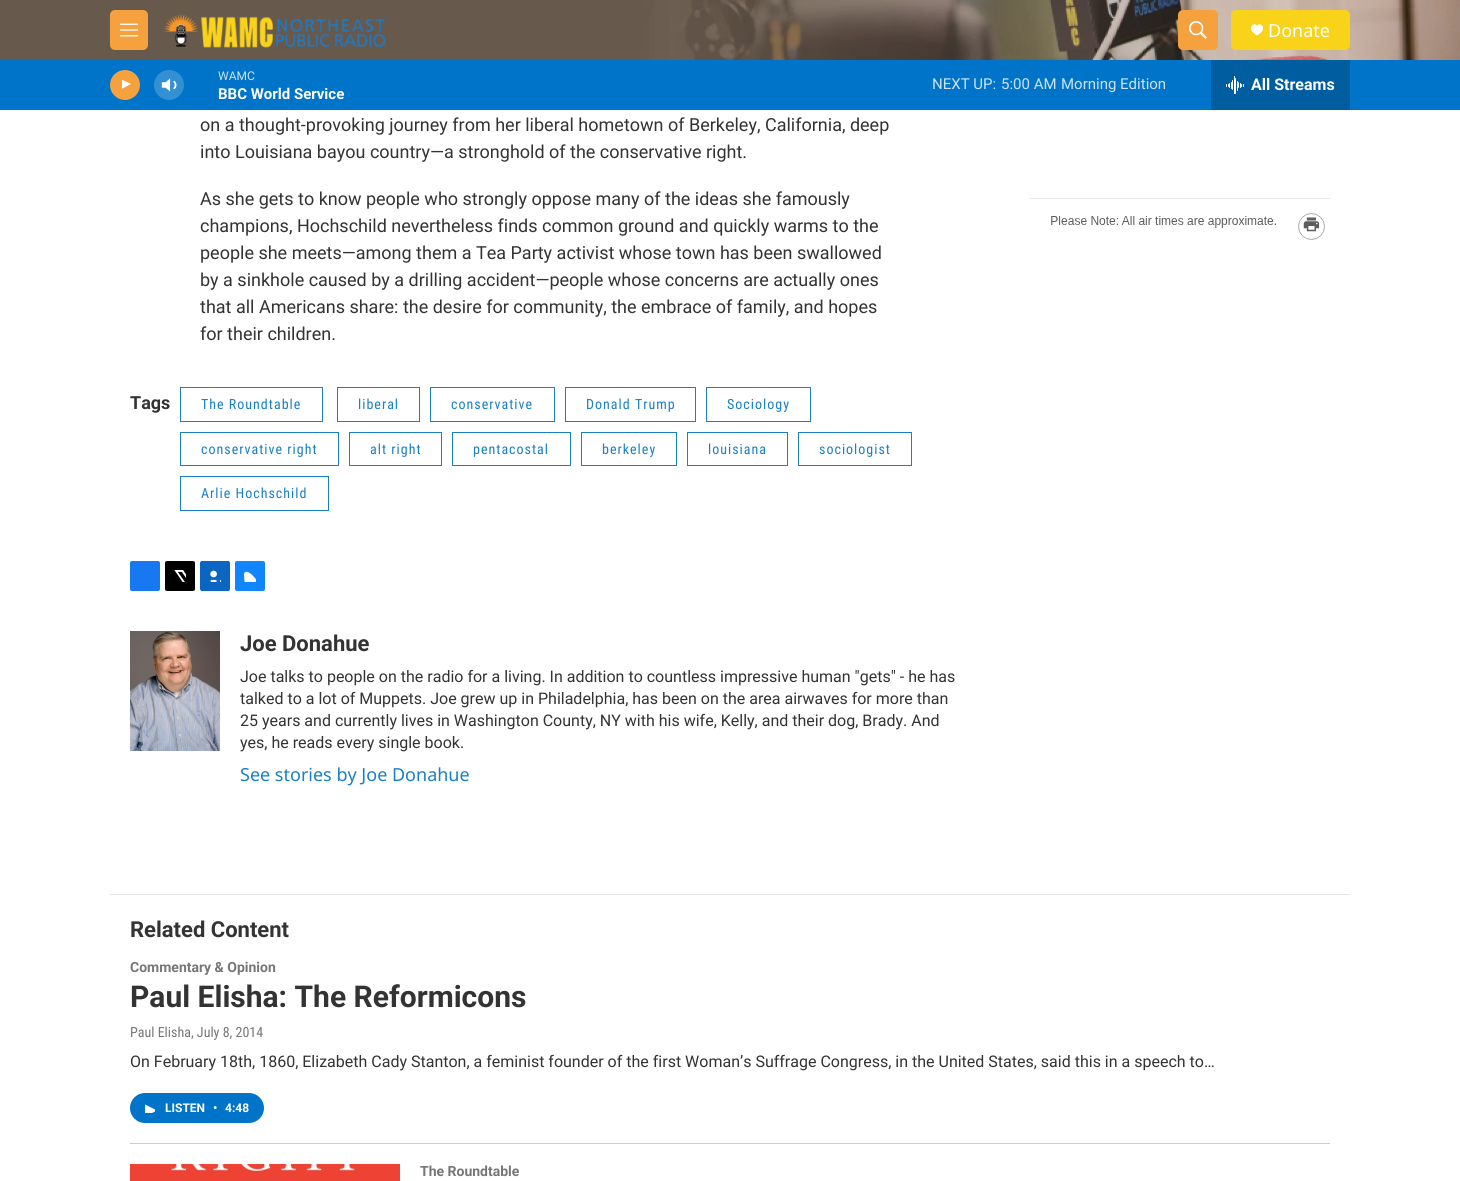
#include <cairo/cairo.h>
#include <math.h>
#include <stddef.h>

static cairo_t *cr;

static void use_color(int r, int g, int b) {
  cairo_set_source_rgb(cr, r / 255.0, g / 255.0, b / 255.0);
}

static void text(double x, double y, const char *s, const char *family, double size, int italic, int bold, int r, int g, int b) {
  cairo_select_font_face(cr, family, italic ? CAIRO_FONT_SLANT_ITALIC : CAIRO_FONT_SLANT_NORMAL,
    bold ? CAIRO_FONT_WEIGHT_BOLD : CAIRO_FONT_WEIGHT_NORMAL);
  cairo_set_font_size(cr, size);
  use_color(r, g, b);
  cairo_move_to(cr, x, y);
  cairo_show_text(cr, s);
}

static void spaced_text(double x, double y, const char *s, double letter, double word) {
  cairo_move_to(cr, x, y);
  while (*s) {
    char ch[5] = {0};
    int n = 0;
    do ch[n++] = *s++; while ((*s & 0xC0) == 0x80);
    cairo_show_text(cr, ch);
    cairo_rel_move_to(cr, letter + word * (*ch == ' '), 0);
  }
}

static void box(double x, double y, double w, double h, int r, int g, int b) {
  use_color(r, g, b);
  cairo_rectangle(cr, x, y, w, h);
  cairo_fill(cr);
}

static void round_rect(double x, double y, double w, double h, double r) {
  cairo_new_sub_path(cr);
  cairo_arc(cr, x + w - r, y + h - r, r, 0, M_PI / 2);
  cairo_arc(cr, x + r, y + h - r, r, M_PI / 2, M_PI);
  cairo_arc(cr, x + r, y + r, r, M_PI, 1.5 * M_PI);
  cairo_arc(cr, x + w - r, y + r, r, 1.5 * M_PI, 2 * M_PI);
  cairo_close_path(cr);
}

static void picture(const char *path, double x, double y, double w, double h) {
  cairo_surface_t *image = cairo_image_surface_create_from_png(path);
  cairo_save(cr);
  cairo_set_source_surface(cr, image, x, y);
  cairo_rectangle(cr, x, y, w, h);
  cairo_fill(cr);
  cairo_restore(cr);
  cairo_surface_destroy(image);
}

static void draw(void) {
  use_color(255, 255, 255);
  cairo_paint(cr);
  box(0, 110, 1460, 1, 245, 245, 245);
  picture("img_01.png", 0, 0, 1460, 60);
  use_color(245, 161, 61);
  round_rect(110, 10, 38, 40, 5);
  cairo_fill(cr);
  picture("img_02.png", 120, 23, 18, 14);
  picture("img_03.png", 164, 14, 222, 34);
  round_rect(1178, 10, 40, 40, 5);
  cairo_fill(cr);
  picture("img_04.png", 1189, 21, 18, 18);
  use_color(249, 211, 25);
  round_rect(1231, 10, 119, 40, 5);
  cairo_fill(cr);
  use_color(255, 255, 255);
  cairo_new_path(cr);
  cairo_move_to(cr, 1257, 26);
  cairo_curve_to(cr, 1255, 21, 1244.5, 28, 1257, 35.5);
  cairo_curve_to(cr, 1269.5, 28, 1259, 21, 1257, 26);
  cairo_close_path(cr);
  cairo_fill(cr);
  box(0, 60, 1460, 50, 0, 116, 200);
  use_color(245, 161, 61);
  cairo_arc(cr, 125, 85, 15, 0, 2 * M_PI);
  cairo_fill(cr);
  cairo_save(cr);
  cairo_rectangle(cr, 122, 78, 12, 15);
  cairo_clip(cr);
  use_color(255, 255, 255);
  cairo_new_path(cr);
  cairo_move_to(cr, 121.5, 79.5);
  cairo_line_to(cr, 131, 84);
  cairo_line_to(cr, 121.5, 89);
  cairo_close_path(cr);
  cairo_fill(cr);
  cairo_restore(cr);
  picture("img_05.png", 161, 78, 16, 14);
  cairo_set_source_rgba(cr, 1, 1, 1, 0.2);
  cairo_arc(cr, 169, 85, 15, 0, 2 * M_PI);
  cairo_fill(cr);
  box(1211, 60, 139, 50, 0, 93, 160);
  picture("img_06.png", 1226, 76, 18, 18);
  cairo_rectangle(cr, 180.5, 387.5, 142, 34);
  use_color(26, 127, 195);
  cairo_set_line_width(cr, 1);
  cairo_stroke(cr);
  cairo_rectangle(cr, 337.5, 387.5, 82, 34);
  cairo_stroke(cr);
  cairo_rectangle(cr, 430.5, 387.5, 124, 34);
  cairo_stroke(cr);
  cairo_rectangle(cr, 565.5, 387.5, 130, 34);
  cairo_stroke(cr);
  cairo_rectangle(cr, 706.5, 387.5, 104, 34);
  cairo_stroke(cr);
  cairo_rectangle(cr, 180.5, 432.5, 158, 33);
  cairo_stroke(cr);
  cairo_rectangle(cr, 349.5, 432.5, 92, 33);
  cairo_stroke(cr);
  cairo_rectangle(cr, 452.5, 432.5, 118, 33);
  cairo_stroke(cr);
  cairo_rectangle(cr, 581.5, 432.5, 95, 33);
  cairo_stroke(cr);
  cairo_rectangle(cr, 687.5, 432.5, 100, 33);
  cairo_stroke(cr);
  cairo_rectangle(cr, 798.5, 432.5, 113, 33);
  cairo_stroke(cr);
  cairo_rectangle(cr, 180.5, 476.5, 148, 34);
  cairo_stroke(cr);
  use_color(23, 120, 242);
  round_rect(130, 561, 30, 30, 2);
  cairo_fill(cr);
  use_color(0, 0, 0);
  round_rect(165, 561, 30, 30, 2);
  cairo_fill(cr);
  picture("img_07.png", 174, 570, 12, 12);
  use_color(10, 102, 193);
  round_rect(200, 561, 30, 30, 2);
  cairo_fill(cr);
  picture("img_08.png", 210, 570, 11, 12);
  use_color(17, 133, 254);
  round_rect(235, 561, 30, 30, 2);
  cairo_fill(cr);
  picture("img_09.png", 244, 571, 12, 11);
  picture("img_10.png", 130, 631, 90, 120);
  picture("img_11.png", 1030, 198, 300, 42);
  box(110, 894, 1240, 1, 230, 230, 230);
  box(130, 1143, 1200, 1, 204, 204, 204);
  use_color(0, 116, 200);
  round_rect(130, 1093, 134, 30, 15);
  cairo_fill(cr);
  cairo_save(cr);
  cairo_rectangle(cr, 145, 1103, 10, 10);
  cairo_clip(cr);
  use_color(255, 255, 255);
  cairo_new_path(cr);
  cairo_move_to(cr, 145, 1104.5);
  cairo_line_to(cr, 157, 1110.5);
  cairo_line_to(cr, 145, 1116.5);
  cairo_close_path(cr);
  cairo_fill(cr);
  cairo_restore(cr);
  picture("img_12.png", 130, 1164, 270, 17);
  text(1268, 37, "Donate", "Noto Sans", 18, 0, 0, 255, 255, 255);
  text(218, 80, "WAMC", "Roboto", 12, 0, 0, 204, 227, 244);
  text(218, 99, "BBC World Service", "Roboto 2", 15, 0, 1, 255, 255, 255);
  text(932, 89, "NEXT UP:", "Roboto", 15, 0, 0, 204, 227, 244);
  text(1001, 89, "5:00 AM", "Roboto", 15, 0, 0, 204, 227, 244);
  text(1061, 89, "Morning Edition", "Roboto", 15, 0, 0, 204, 227, 244);
  text(1251, 90, "All Streams", "Roboto 2", 16, 0, 1, 255, 255, 255);
  text(200, 131, "on a thought-provoking journey from her liberal hometown of Berkeley, California, deep", "Roboto", 18, 0, 0, 51, 51, 51);
  text(200, 158, "into Louisiana bayou country—a stronghold of the conservative right.", "Roboto", 18, 0, 0, 51, 51, 51);
  text(200, 205, "As she gets to know people who strongly oppose many of the ideas she famously", "Roboto", 18, 0, 0, 51, 51, 51);
  text(200, 232, "champions, Hochschild nevertheless finds common ground and quickly warms to the", "Roboto", 18, 0, 0, 51, 51, 51);
  text(200, 259, "people she meets—among them a Tea Party activist whose town has been swallowed", "Roboto", 18, 0, 0, 51, 51, 51);
  text(200, 286, "by a sinkhole caused by a drilling accident—people whose concerns are actually ones", "Roboto", 18, 0, 0, 51, 51, 51);
  text(200, 313, "that all Americans share: the desire for community, the embrace of family, and hopes", "Roboto", 18, 0, 0, 51, 51, 51);
  text(200, 340, "for their children.", "Roboto", 18, 0, 0, 51, 51, 51);
  text(130, 409, "Tags", "Roboto", 18, 0, 1, 51, 51, 51);
  cairo_select_font_face(cr, "Roboto Condensed", CAIRO_FONT_SLANT_NORMAL, CAIRO_FONT_WEIGHT_NORMAL);
  cairo_set_font_size(cr, 14);
  use_color(26, 127, 195);
  spaced_text(201, 409, "The Roundtable", 1, 0);
  spaced_text(358, 409, "liberal", 1, 0);
  spaced_text(451, 409, "conservative", 1, 0);
  spaced_text(586, 409, "Donald Trump", 1, 0);
  spaced_text(727, 409, "Sociology", 1, 0);
  spaced_text(201, 454, "conservative right", 1, 0);
  spaced_text(370, 454, "alt right", 1, 0);
  spaced_text(473, 454, "pentacostal", 1, 0);
  spaced_text(602, 454, "berkeley", 1, 0);
  spaced_text(708, 454, "louisiana", 1, 0);
  spaced_text(819, 454, "sociologist", 1, 0);
  spaced_text(201, 498, "Arlie Hochschild", 1, 0);
  text(240, 651, "Joe Donahue", "Roboto", 22, 0, 1, 51, 51, 51);
  text(240, 682, "Joe talks to people on the radio for a living. In addition to countless impressive human \"gets\" - he has", "Roboto", 16, 0, 0, 51, 51, 51);
  text(240, 704, "talked to a lot of Muppets. Joe grew up in Philadelphia, has been on the area airwaves for more than", "Roboto", 16, 0, 0, 51, 51, 51);
  text(240, 726, "25 years and currently lives in Washington County, NY with his wife, Kelly, and their dog, Brady. And", "Roboto", 16, 0, 0, 51, 51, 51);
  text(240, 748, "yes, he reads every single book.", "Roboto", 16, 0, 0, 51, 51, 51);
  text(240, 781, "See stories by Joe Donahue", "Noto Sans", 18, 0, 0, 26, 127, 195);
  text(130, 937, "Related Content", "Roboto", 22, 0, 1, 51, 51, 51);
  text(130, 972, "Commentary & Opinion", "Roboto", 14, 0, 1, 118, 118, 118);
  text(130, 1007, "Paul Elisha: The Reformicons", "Roboto", 30, 0, 1, 51, 51, 51);
  text(130, 1037, "Paul Elisha, July 8, 2014", "Roboto Condensed", 14, 0, 0, 118, 118, 118);
  text(130, 1067, "On February 18th, 1860, Elizabeth Cady Stanton, a feminist founder of the first Woman’s Suffrage Congress, in the United States, said this in a speech to…", "Roboto", 16, 0, 0, 51, 51, 51);
  text(165, 1112, "LISTEN", "Roboto 2", 12, 0, 1, 255, 255, 255);
  text(213, 1112, "•", "Roboto 2", 12, 0, 1, 255, 255, 255);
  text(225, 1112, "4:48", "Roboto 2", 12, 0, 1, 255, 255, 255);
  text(420, 1176, "The Roundtable", "Roboto", 14, 0, 1, 118, 118, 118);
}

int main(void) {
  cairo_surface_t *surface = cairo_image_surface_create(CAIRO_FORMAT_RGB24, 1460, 1181);
  cr = cairo_create(surface);
  cairo_font_options_t *options = cairo_font_options_create();
  cairo_font_options_set_hint_metrics(options, CAIRO_HINT_METRICS_OFF);
  cairo_font_options_set_hint_style(options, CAIRO_HINT_STYLE_NONE);
  cairo_set_font_options(cr, options);
  cairo_set_miter_limit(cr, 4);
  draw();
  cairo_surface_write_to_png(surface, "out.png");
  cairo_font_options_destroy(options);
  cairo_destroy(cr);
  cairo_surface_destroy(surface);
  return 0;
}
